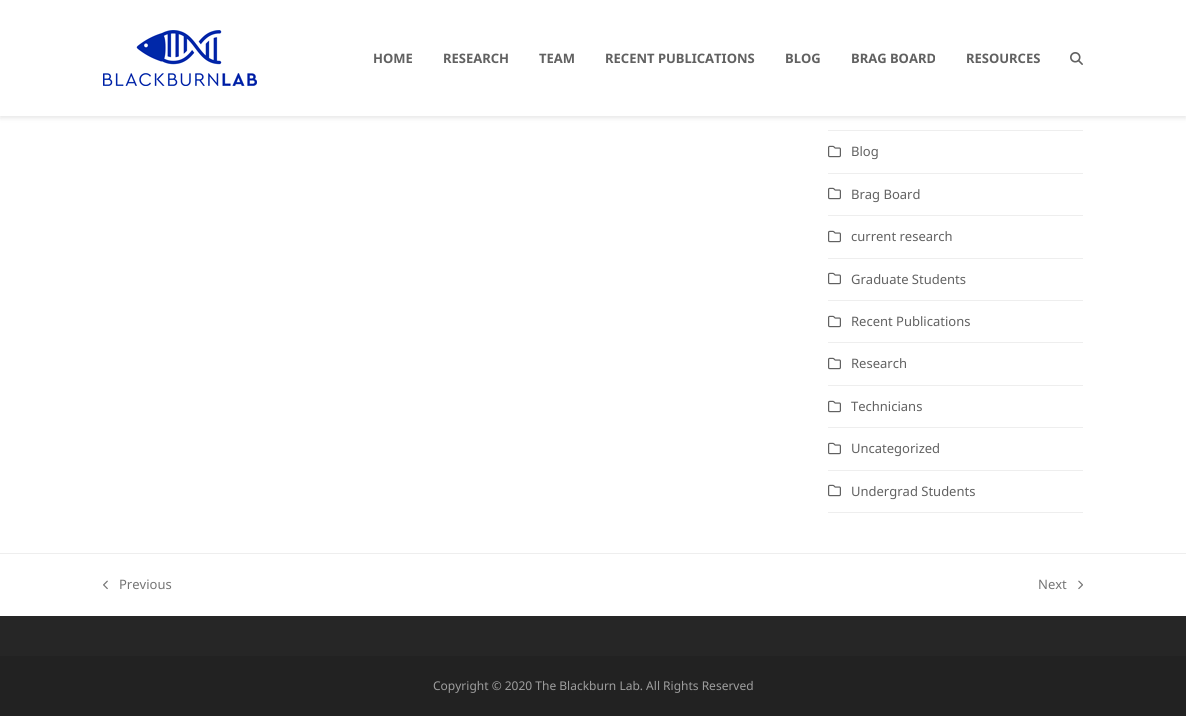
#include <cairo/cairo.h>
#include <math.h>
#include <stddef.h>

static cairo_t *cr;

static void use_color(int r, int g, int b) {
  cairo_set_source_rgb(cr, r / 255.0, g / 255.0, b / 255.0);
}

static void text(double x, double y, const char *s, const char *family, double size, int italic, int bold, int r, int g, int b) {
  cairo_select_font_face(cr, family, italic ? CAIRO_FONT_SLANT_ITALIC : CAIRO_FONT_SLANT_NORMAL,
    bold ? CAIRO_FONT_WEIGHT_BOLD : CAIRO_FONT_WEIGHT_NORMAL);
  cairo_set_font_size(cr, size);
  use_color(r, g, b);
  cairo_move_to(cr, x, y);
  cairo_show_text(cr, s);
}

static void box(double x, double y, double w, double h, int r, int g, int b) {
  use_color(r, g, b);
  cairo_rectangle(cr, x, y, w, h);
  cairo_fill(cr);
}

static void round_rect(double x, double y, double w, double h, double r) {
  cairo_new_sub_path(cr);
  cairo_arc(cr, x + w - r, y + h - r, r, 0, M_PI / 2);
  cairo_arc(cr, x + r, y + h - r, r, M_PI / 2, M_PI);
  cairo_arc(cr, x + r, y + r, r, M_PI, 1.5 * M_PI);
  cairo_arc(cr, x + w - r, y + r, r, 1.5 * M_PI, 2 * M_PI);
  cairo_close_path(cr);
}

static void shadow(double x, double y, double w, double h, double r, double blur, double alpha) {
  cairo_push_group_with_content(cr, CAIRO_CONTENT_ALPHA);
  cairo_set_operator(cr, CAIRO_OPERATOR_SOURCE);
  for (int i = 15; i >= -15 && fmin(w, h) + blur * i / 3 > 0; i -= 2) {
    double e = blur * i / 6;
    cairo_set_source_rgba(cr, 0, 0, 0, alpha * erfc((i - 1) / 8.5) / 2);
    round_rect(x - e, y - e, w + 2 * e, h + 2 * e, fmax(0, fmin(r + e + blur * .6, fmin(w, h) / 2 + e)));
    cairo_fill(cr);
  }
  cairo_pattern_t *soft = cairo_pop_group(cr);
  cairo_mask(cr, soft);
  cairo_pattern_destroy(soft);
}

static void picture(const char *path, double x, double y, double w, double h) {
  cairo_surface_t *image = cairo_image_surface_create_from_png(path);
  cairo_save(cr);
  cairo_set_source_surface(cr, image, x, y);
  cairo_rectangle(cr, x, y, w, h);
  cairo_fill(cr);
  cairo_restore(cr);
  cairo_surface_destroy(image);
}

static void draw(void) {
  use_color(255, 255, 255);
  cairo_paint(cr);
  use_color(0, 0, 0);
  shadow(0, 2, 1186, 116, 0, 2.5, 0.1);
  box(0, 0, 1186, 116, 255, 255, 255);
  picture("img_01.png", 103, 30, 154, 56);
  picture("img_02.png", 1070, 52, 13, 13);
  box(828, 130, 255, 1, 238, 238, 238);
  box(828, 173, 255, 1, 238, 238, 238);
  picture("img_03.png", 828, 145, 13, 13);
  box(828, 215, 255, 1, 238, 238, 238);
  picture("img_03.png", 828, 187, 13, 13);
  box(828, 258, 255, 1, 238, 238, 238);
  picture("img_03.png", 828, 230, 13, 13);
  box(828, 300, 255, 1, 238, 238, 238);
  picture("img_03.png", 828, 272, 13, 13);
  box(828, 342, 255, 1, 238, 238, 238);
  picture("img_03.png", 828, 315, 13, 13);
  box(828, 385, 255, 1, 238, 238, 238);
  picture("img_03.png", 828, 357, 13, 13);
  box(828, 427, 255, 1, 238, 238, 238);
  picture("img_03.png", 828, 400, 13, 13);
  box(828, 470, 255, 1, 238, 238, 238);
  picture("img_03.png", 828, 442, 13, 13);
  box(828, 512, 255, 1, 238, 238, 238);
  picture("img_03.png", 828, 484, 13, 13);
  box(0, 553, 1186, 1, 238, 238, 238);
  picture("img_04.png", 103, 580, 5, 10);
  picture("img_05.png", 1078, 580, 5, 10);
  box(0, 616, 1186, 40, 38, 38, 38);
  box(0, 656, 1186, 60, 34, 34, 34);
  text(373, 63, "HOME", "Noto Sans", 13, 0, 1, 97, 97, 97);
  text(443, 63, "RESEARCH", "Noto Sans", 13, 0, 1, 97, 97, 97);
  text(539, 63, "TEAM", "Noto Sans", 13, 0, 1, 97, 97, 97);
  text(605, 63, "RECENT PUBLICATIONS", "Noto Sans", 13, 0, 1, 97, 97, 97);
  text(785, 63, "BLOG", "Noto Sans", 13, 0, 1, 97, 97, 97);
  text(851, 63, "BRAG BOARD", "Noto Sans", 13, 0, 1, 97, 97, 97);
  text(966, 63, "RESOURCES", "Noto Sans", 13, 0, 1, 97, 97, 97);
  text(851, 156, "Blog", "Noto Sans", 13, 0, 0, 97, 97, 97);
  text(851, 199, "Brag Board", "Noto Sans", 13, 0, 0, 97, 97, 97);
  text(851, 241, "current research", "Noto Sans", 13, 0, 0, 97, 97, 97);
  text(851, 284, "Graduate Students", "Noto Sans", 13, 0, 0, 97, 97, 97);
  text(851, 326, "Recent Publications", "Noto Sans", 13, 0, 0, 97, 97, 97);
  text(851, 368, "Research", "Noto Sans", 13, 0, 0, 97, 97, 97);
  text(851, 411, "Technicians", "Noto Sans", 13, 0, 0, 97, 97, 97);
  text(851, 453, "Uncategorized", "Noto Sans", 13, 0, 0, 97, 97, 97);
  text(851, 496, "Undergrad Students", "Noto Sans", 13, 0, 0, 97, 97, 97);
  text(119, 589, "Previous", "Noto Sans", 13, 0, 0, 117, 117, 117);
  text(1038, 589, "Next", "Noto Sans", 13, 0, 0, 117, 117, 117);
  text(433, 690, "Copyright © 2020 The Blackburn Lab. All Rights Reserved", "Noto Sans", 12, 0, 0, 158, 158, 158);
}

int main(void) {
  cairo_surface_t *surface = cairo_image_surface_create(CAIRO_FORMAT_RGB24, 1186, 716);
  cr = cairo_create(surface);
  cairo_font_options_t *options = cairo_font_options_create();
  cairo_font_options_set_hint_metrics(options, CAIRO_HINT_METRICS_OFF);
  cairo_font_options_set_hint_style(options, CAIRO_HINT_STYLE_NONE);
  cairo_set_font_options(cr, options);
  cairo_set_miter_limit(cr, 4);
  draw();
  cairo_surface_write_to_png(surface, "out.png");
  cairo_font_options_destroy(options);
  cairo_destroy(cr);
  cairo_surface_destroy(surface);
  return 0;
}
